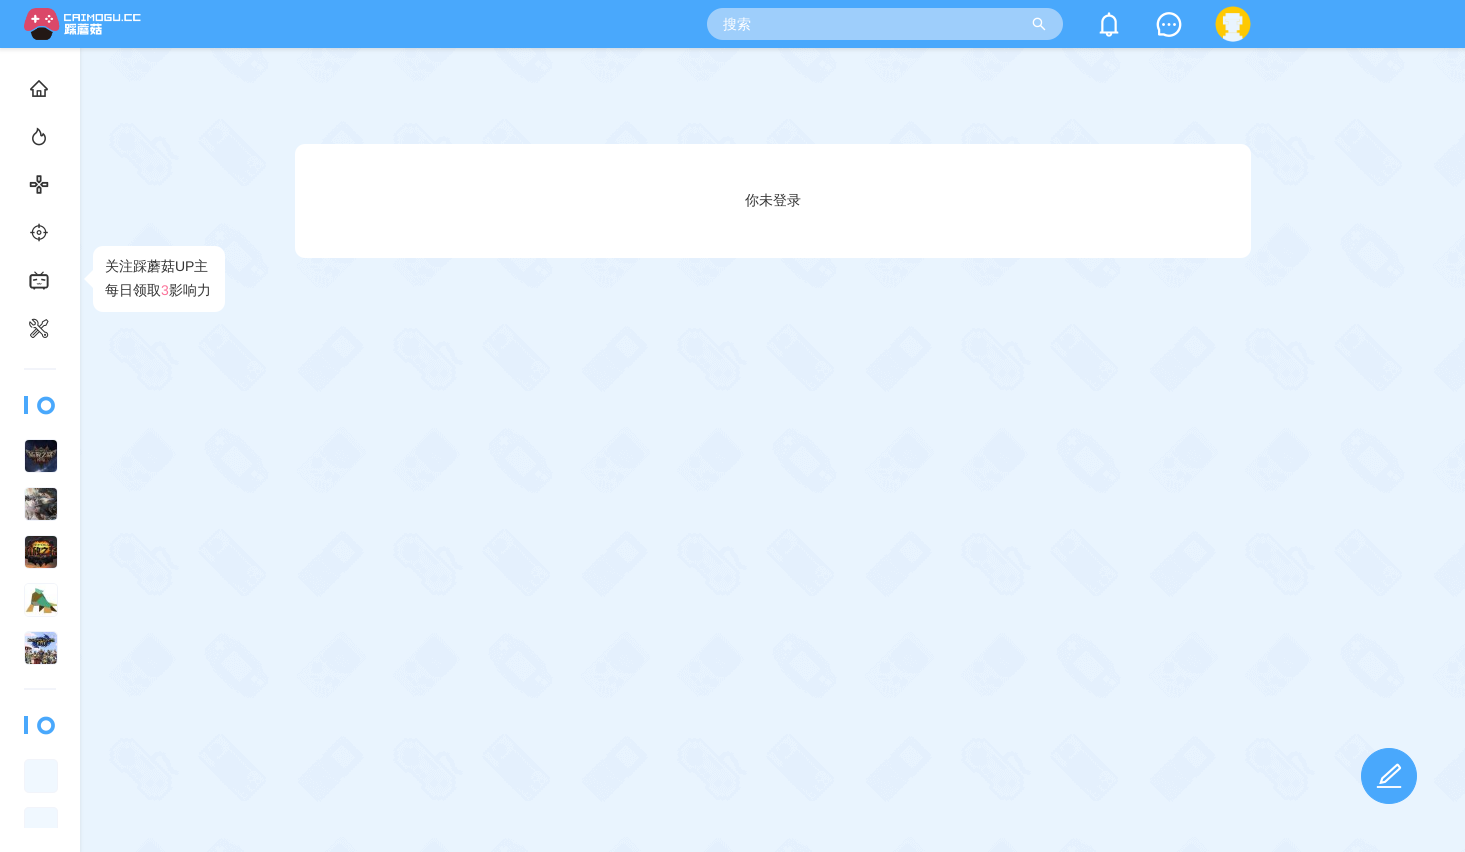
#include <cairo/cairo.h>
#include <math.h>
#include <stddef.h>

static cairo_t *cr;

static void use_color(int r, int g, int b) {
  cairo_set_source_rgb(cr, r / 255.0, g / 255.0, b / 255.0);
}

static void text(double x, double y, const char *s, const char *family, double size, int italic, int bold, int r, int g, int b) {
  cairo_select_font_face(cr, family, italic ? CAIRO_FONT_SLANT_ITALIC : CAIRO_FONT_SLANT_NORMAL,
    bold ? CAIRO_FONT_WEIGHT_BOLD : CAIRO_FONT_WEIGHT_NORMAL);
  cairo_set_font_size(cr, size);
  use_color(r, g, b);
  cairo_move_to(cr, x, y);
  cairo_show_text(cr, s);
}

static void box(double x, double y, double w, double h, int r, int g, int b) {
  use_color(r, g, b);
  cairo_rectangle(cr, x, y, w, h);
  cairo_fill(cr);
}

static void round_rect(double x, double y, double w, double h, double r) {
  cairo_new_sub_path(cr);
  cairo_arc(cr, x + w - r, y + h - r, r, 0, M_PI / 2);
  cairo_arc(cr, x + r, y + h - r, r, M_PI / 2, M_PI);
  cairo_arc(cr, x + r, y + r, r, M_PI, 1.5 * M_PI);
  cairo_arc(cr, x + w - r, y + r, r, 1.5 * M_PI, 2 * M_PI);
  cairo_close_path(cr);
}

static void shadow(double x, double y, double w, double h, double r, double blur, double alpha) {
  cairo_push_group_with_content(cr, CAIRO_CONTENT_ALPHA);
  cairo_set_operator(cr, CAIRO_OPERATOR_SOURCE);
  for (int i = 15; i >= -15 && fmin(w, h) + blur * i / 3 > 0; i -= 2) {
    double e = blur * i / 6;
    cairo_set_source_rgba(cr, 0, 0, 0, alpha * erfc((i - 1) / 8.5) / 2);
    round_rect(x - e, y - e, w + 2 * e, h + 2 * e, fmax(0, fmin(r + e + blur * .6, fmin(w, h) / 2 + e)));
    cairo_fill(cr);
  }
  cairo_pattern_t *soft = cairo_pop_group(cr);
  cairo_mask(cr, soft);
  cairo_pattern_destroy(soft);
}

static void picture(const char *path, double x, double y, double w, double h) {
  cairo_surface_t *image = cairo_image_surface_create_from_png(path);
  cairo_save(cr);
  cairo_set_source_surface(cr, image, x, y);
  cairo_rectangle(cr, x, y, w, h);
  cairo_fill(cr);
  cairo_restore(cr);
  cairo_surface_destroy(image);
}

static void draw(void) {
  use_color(255, 255, 255);
  cairo_paint(cr);
  picture("img_01.png", 80, 48, 1385, 804);
  use_color(153, 153, 153);
  shadow(0, 0, 80, 852, 0, 2, 0.25);
  box(0, 48, 80, 804, 255, 255, 255);
  use_color(153, 153, 153);
  shadow(0, 2, 1465, 48, 0, 2, 0.25);
  box(0, 0, 1465, 48, 73, 168, 252);
  picture("img_02.png", 24, 8, 117, 32);
  use_color(158, 206, 251);
  round_rect(707, 8, 356, 32, 16);
  cairo_fill(cr);
  picture("img_03.png", 1032, 17, 14, 14);
  picture("img_04.png", 1099, 12, 20, 25);
  picture("img_05.png", 1156, 12, 26, 25);
  picture("img_06.png", 1215, 6, 36, 36);
  use_color(255, 255, 255);
  round_rect(295, 144, 956, 114, 10);
  cairo_fill(cr);
  picture("img_07.png", 30, 80, 18, 17);
  picture("img_08.png", 32, 127, 14, 19);
  picture("img_09.png", 29, 175, 20, 19);
  picture("img_10.png", 30, 223, 18, 19);
  picture("img_11.png", 29, 271, 20, 19);
  cairo_new_path(cr);
  cairo_move_to(cr, 93, 270);
  cairo_line_to(cr, 93, 288);
  cairo_line_to(cr, 84, 279);
  cairo_close_path(cr);
  cairo_fill(cr);
  round_rect(93, 246, 132, 66, 10);
  cairo_fill(cr);
  picture("img_12.png", 29, 318, 20, 20);
  box(24, 368, 32, 2, 242, 244, 250);
  box(24, 396, 4, 18, 73, 168, 252);
  picture("img_13.png", 37, 396, 18, 19);
  round_rect(24.5, 439.5, 33, 33, 4.5);
  use_color(242, 244, 250);
  cairo_set_line_width(cr, 1);
  cairo_stroke(cr);
  picture("img_14.png", 25, 440, 32, 32);
  round_rect(24.5, 487.5, 33, 33, 4.5);
  cairo_stroke(cr);
  picture("img_15.png", 25, 488, 32, 32);
  round_rect(24.5, 535.5, 33, 33, 4.5);
  cairo_stroke(cr);
  picture("img_16.png", 25, 536, 32, 32);
  round_rect(24.5, 583.5, 33, 33, 4.5);
  cairo_stroke(cr);
  picture("img_17.png", 25, 584, 32, 32);
  round_rect(24.5, 631.5, 33, 33, 4.5);
  cairo_stroke(cr);
  picture("img_18.png", 25, 632, 32, 32);
  box(24, 688, 32, 2, 242, 244, 250);
  box(24, 716, 4, 18, 73, 168, 252);
  picture("img_13.png", 37, 716, 18, 19);
  use_color(240, 248, 255);
  round_rect(24.5, 759.5, 33, 33, 4.5);
  cairo_fill_preserve(cr);
  use_color(242, 244, 250);
  cairo_stroke(cr);
  use_color(240, 248, 255);
  cairo_new_path(cr);
  cairo_move_to(cr, 29, 807);
  cairo_line_to(cr, 53, 807);
  cairo_curve_to(cr, 56, 807, 58, 809, 58, 812);
  cairo_line_to(cr, 58, 828);
  cairo_line_to(cr, 24, 828);
  cairo_line_to(cr, 24, 812);
  cairo_curve_to(cr, 24, 809, 26, 807, 29, 807);
  cairo_close_path(cr);
  cairo_fill(cr);
  cairo_save(cr);
  cairo_rectangle(cr, 0, 48, 80, 780);
  cairo_clip(cr);
  round_rect(24.5, 807.5, 33, 33, 4.5);
  use_color(242, 244, 250);
  cairo_stroke(cr);
  cairo_restore(cr);
  use_color(73, 168, 252);
  cairo_arc(cr, 1389, 776, 27.5, 0, 2 * M_PI);
  cairo_fill_preserve(cr);
  cairo_stroke(cr);
  picture("img_19.png", 1376, 763, 26, 25);
  text(723, 29, "搜索", "WenQuanYi Zen Hei Medium", 14, 0, 0, 255, 255, 255);
  text(745, 205, "你未登录", "WenQuanYi Zen Hei Medium", 14, 0, 0, 51, 51, 51);
  text(105, 271, "关注踩蘑菇", "WenQuanYi Zen Hei Medium", 14, 0, 0, 51, 51, 51);
  text(175, 271, "UP", "Liberation Sans", 14, 0, 0, 51, 51, 51);
  text(194, 271, "主", "WenQuanYi Zen Hei Medium", 14, 0, 0, 51, 51, 51);
  text(105, 295, "每日领取", "WenQuanYi Zen Hei Medium", 14, 0, 0, 51, 51, 51);
  text(161, 295, "3", "Liberation Sans", 14, 0, 0, 251, 114, 153);
  text(169, 295, "影响力", "WenQuanYi Zen Hei Medium", 14, 0, 0, 51, 51, 51);
}

int main(void) {
  cairo_surface_t *surface = cairo_image_surface_create(CAIRO_FORMAT_RGB24, 1465, 852);
  cr = cairo_create(surface);
  cairo_font_options_t *options = cairo_font_options_create();
  cairo_font_options_set_hint_metrics(options, CAIRO_HINT_METRICS_OFF);
  cairo_font_options_set_hint_style(options, CAIRO_HINT_STYLE_NONE);
  cairo_set_font_options(cr, options);
  cairo_set_miter_limit(cr, 4);
  draw();
  cairo_surface_write_to_png(surface, "out.png");
  cairo_font_options_destroy(options);
  cairo_destroy(cr);
  cairo_surface_destroy(surface);
  return 0;
}
